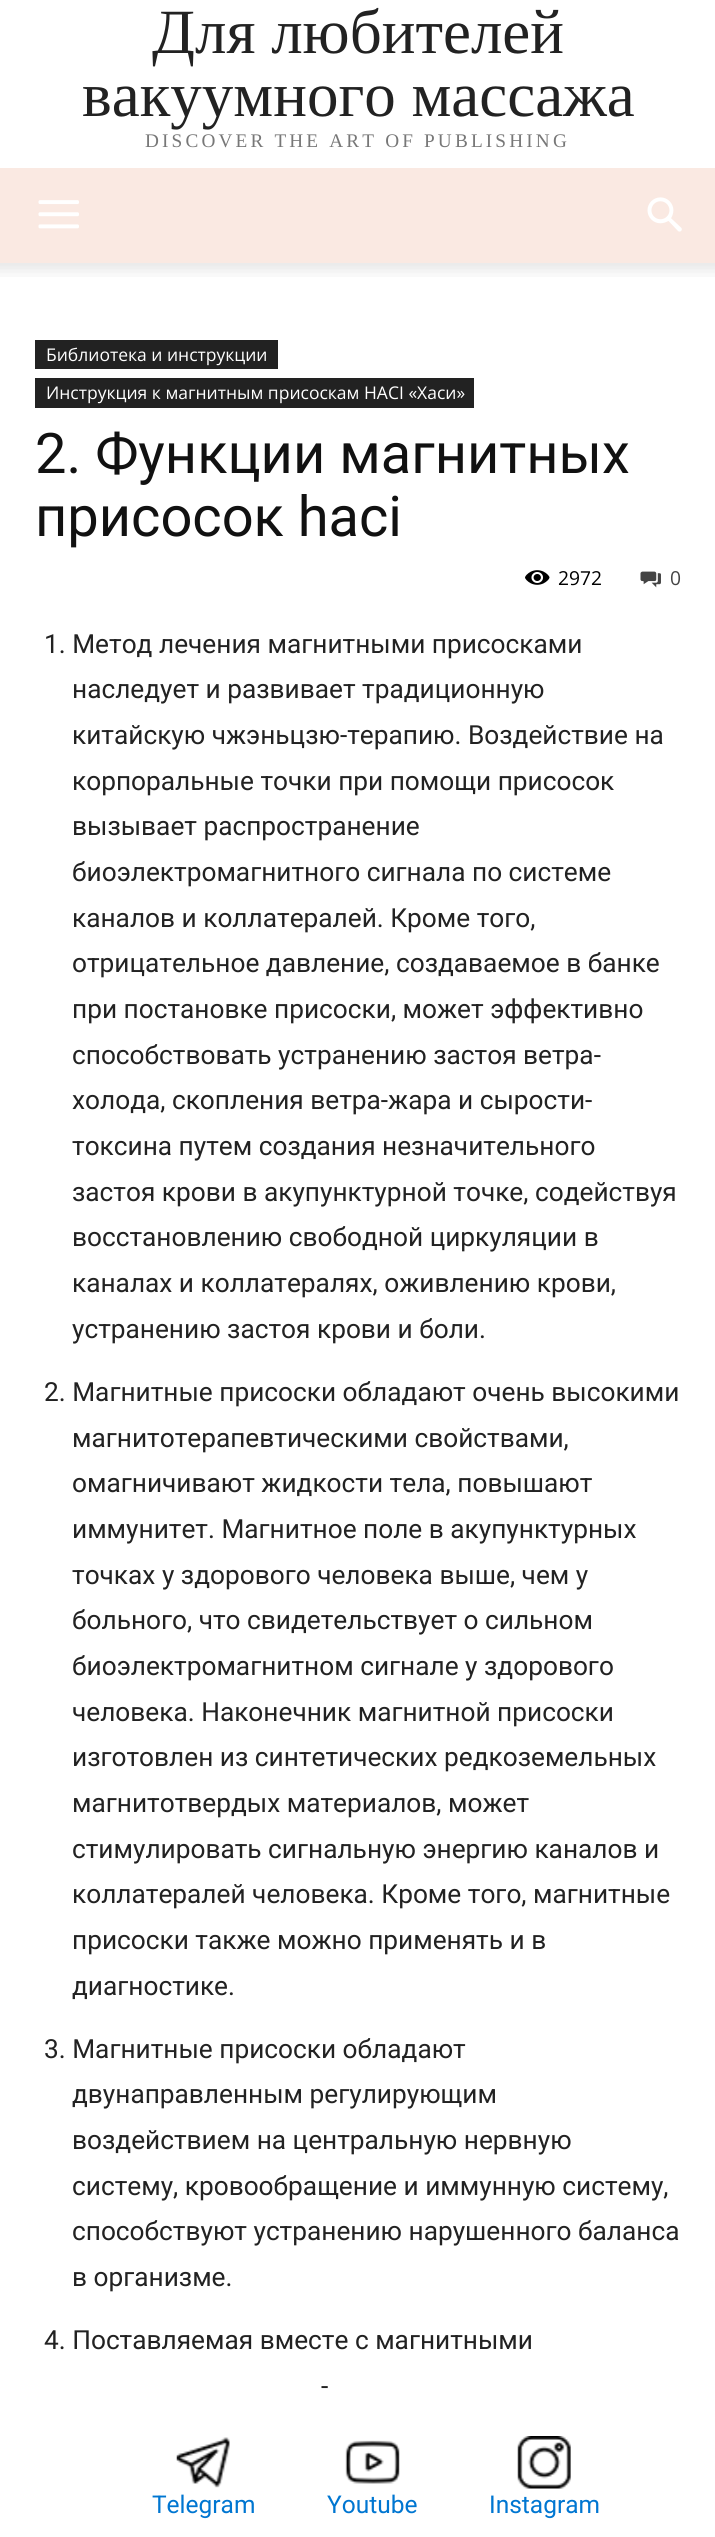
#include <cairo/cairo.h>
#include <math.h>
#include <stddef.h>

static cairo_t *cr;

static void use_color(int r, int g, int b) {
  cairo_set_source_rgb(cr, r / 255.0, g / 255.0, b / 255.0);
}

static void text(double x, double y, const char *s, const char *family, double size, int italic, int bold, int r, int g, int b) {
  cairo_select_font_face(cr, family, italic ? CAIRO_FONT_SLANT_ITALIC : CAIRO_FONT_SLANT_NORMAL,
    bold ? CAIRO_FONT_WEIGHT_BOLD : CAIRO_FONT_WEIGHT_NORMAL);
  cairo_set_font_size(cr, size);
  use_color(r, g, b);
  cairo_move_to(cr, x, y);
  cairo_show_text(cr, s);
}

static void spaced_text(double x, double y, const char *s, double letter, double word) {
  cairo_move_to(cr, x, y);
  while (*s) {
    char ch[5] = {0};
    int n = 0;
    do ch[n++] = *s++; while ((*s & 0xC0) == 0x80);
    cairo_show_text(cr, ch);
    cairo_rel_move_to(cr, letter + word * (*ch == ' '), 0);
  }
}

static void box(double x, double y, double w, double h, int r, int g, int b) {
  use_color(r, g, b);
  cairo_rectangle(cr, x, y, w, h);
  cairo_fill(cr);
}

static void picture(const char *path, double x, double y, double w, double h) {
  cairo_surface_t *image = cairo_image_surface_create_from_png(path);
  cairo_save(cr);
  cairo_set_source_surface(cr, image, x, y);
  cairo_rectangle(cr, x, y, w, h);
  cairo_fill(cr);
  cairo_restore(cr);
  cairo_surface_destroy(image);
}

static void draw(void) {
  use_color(255, 255, 255);
  cairo_paint(cr);
  box(0, 168, 715, 95, 250, 233, 226);
  picture("img_01.png", 38, 200, 41, 29);
  picture("img_02.png", 647, 197, 35, 35);
  picture("img_03.png", 0, 263, 715, 14);
  box(35, 340, 243, 29, 34, 34, 34);
  box(35, 378, 439, 30, 34, 34, 34);
  picture("img_04.png", 525, 570, 25, 15);
  picture("img_05.png", 640, 571, 21, 17);
  picture("img_06.png", 176, 2437, 54, 51);
  picture("img_07.png", 345, 2440, 55, 44);
  picture("img_08.png", 517, 2436, 54, 53);
  text(152, 53, "Для любителей", "Liberation Serif", 63, 0, 0, 34, 34, 34);
  text(82, 116, "вакуумного массажа", "Liberation Serif", 63, 0, 0, 34, 34, 34);
  cairo_set_font_size(cr, 19.25);
  use_color(119, 119, 119);
  spaced_text(145, 147, "DISCOVER THE ART OF PUBLISHING", 3.15, 0);
  text(46, 361, "Библиотека и инструкции", "Open Sans", 17.5, 0, 0, 255, 255, 255);
  text(46, 399, "Инструкция к магнитным присоскам HACI «Хаси»", "Open Sans", 17.5, 0, 0, 255, 255, 255);
  text(35, 473, "2. Функции магнитных", "Roboto", 56, 0, 0, 17, 17, 17);
  text(35, 536, "присосок haci", "Roboto", 56, 0, 0, 17, 17, 17);
  text(558, 585, "2972", "Open Sans", 19.25, 0, 0, 0, 0, 0);
  text(670, 585, "0", "Open Sans", 19.25, 0, 0, 68, 68, 68);
  text(44, 653, "1. Метод лечения магнитными присосками", "Roboto", 26.25, 0, 0, 34, 34, 34);
  text(72, 698, "наследует и развивает традиционную", "Roboto", 26.25, 0, 0, 34, 34, 34);
  text(72, 744, "китайскую чжэньцзю-терапию. Воздействие на", "Roboto", 26.25, 0, 0, 34, 34, 34);
  text(72, 790, "корпоральные точки при помощи присосок", "Roboto", 26.25, 0, 0, 34, 34, 34);
  text(72, 835, "вызывает распространение", "Roboto", 26.25, 0, 0, 34, 34, 34);
  text(72, 881, "биоэлектромагнитного сигнала по системе", "Roboto", 26.25, 0, 0, 34, 34, 34);
  text(72, 927, "каналов и коллатералей. Кроме того,", "Roboto", 26.25, 0, 0, 34, 34, 34);
  text(72, 972, "отрицательное давление, создаваемое в банке", "Roboto", 26.25, 0, 0, 34, 34, 34);
  text(72, 1018, "при постановке присоски, может эффективно", "Roboto", 26.25, 0, 0, 34, 34, 34);
  text(72, 1064, "способствовать устранению застоя ветра-", "Roboto", 26.25, 0, 0, 34, 34, 34);
  text(72, 1109, "холода, скопления ветра-жара и сырости-", "Roboto", 26.25, 0, 0, 34, 34, 34);
  text(72, 1155, "токсина путем создания незначительного", "Roboto", 26.25, 0, 0, 34, 34, 34);
  text(72, 1201, "застоя крови в акупунктурной точке, содействуя", "Roboto", 26.25, 0, 0, 34, 34, 34);
  text(72, 1246, "восстановлению свободной циркуляции в", "Roboto", 26.25, 0, 0, 34, 34, 34);
  text(72, 1292, "каналах и коллатералях, оживлению крови,", "Roboto", 26.25, 0, 0, 34, 34, 34);
  text(72, 1338, "устранению застоя крови и боли.", "Roboto", 26.25, 0, 0, 34, 34, 34);
  text(44, 1401, "2. Магнитные присоски обладают очень высокими", "Roboto", 26.25, 0, 0, 34, 34, 34);
  text(72, 1447, "магнитотерапевтическими свойствами,", "Roboto", 26.25, 0, 0, 34, 34, 34);
  text(72, 1492, "омагничивают жидкости тела, повышают", "Roboto", 26.25, 0, 0, 34, 34, 34);
  text(72, 1538, "иммунитет. Магнитное поле в акупунктурных", "Roboto", 26.25, 0, 0, 34, 34, 34);
  text(72, 1584, "точках у здорового человека выше, чем у", "Roboto", 26.25, 0, 0, 34, 34, 34);
  text(72, 1629, "больного, что свидетельствует о сильном", "Roboto", 26.25, 0, 0, 34, 34, 34);
  text(72, 1675, "биоэлектромагнитном сигнале у здорового", "Roboto", 26.25, 0, 0, 34, 34, 34);
  text(72, 1721, "человека. Наконечник магнитной присоски", "Roboto", 26.25, 0, 0, 34, 34, 34);
  text(72, 1766, "изготовлен из синтетических редкоземельных", "Roboto", 26.25, 0, 0, 34, 34, 34);
  text(72, 1812, "магнитотвердых материалов, может", "Roboto", 26.25, 0, 0, 34, 34, 34);
  text(72, 1858, "стимулировать сигнальную энергию каналов и", "Roboto", 26.25, 0, 0, 34, 34, 34);
  text(72, 1903, "коллатералей человека. Кроме того, магнитные", "Roboto", 26.25, 0, 0, 34, 34, 34);
  text(72, 1949, "присоски также можно применять и в", "Roboto", 26.25, 0, 0, 34, 34, 34);
  text(72, 1995, "диагностике.", "Roboto", 26.25, 0, 0, 34, 34, 34);
  text(44, 2058, "3. Магнитные присоски обладают", "Roboto", 26.25, 0, 0, 34, 34, 34);
  text(72, 2103, "двунаправленным регулирующим", "Roboto", 26.25, 0, 0, 34, 34, 34);
  text(72, 2149, "воздействием на центральную нервную", "Roboto", 26.25, 0, 0, 34, 34, 34);
  text(72, 2195, "систему, кровообращение и иммунную систему,", "Roboto", 26.25, 0, 0, 34, 34, 34);
  text(72, 2240, "способствуют устранению нарушенного баланса", "Roboto", 26.25, 0, 0, 34, 34, 34);
  text(72, 2286, "в организме.", "Roboto", 26.25, 0, 0, 34, 34, 34);
  text(44, 2349, "4. Поставляемая вместе с магнитными", "Roboto", 26.25, 0, 0, 34, 34, 34);
  text(321, 2395, "-", "Roboto", 26.25, 0, 0, 34, 34, 34);
  text(152, 2513, "Telegram", "Roboto", 24.5, 0, 0, 0, 118, 209);
  text(327, 2513, "Youtube", "Roboto", 24.5, 0, 0, 0, 118, 209);
  text(489, 2513, "Instagram", "Roboto", 24.5, 0, 0, 0, 118, 209);
}

int main(void) {
  cairo_surface_t *surface = cairo_image_surface_create(CAIRO_FORMAT_RGB24, 715, 2537);
  cr = cairo_create(surface);
  cairo_font_options_t *options = cairo_font_options_create();
  cairo_font_options_set_hint_metrics(options, CAIRO_HINT_METRICS_OFF);
  cairo_font_options_set_hint_style(options, CAIRO_HINT_STYLE_NONE);
  cairo_set_font_options(cr, options);
  cairo_set_miter_limit(cr, 4);
  draw();
  cairo_surface_write_to_png(surface, "out.png");
  cairo_font_options_destroy(options);
  cairo_destroy(cr);
  cairo_surface_destroy(surface);
  return 0;
}
